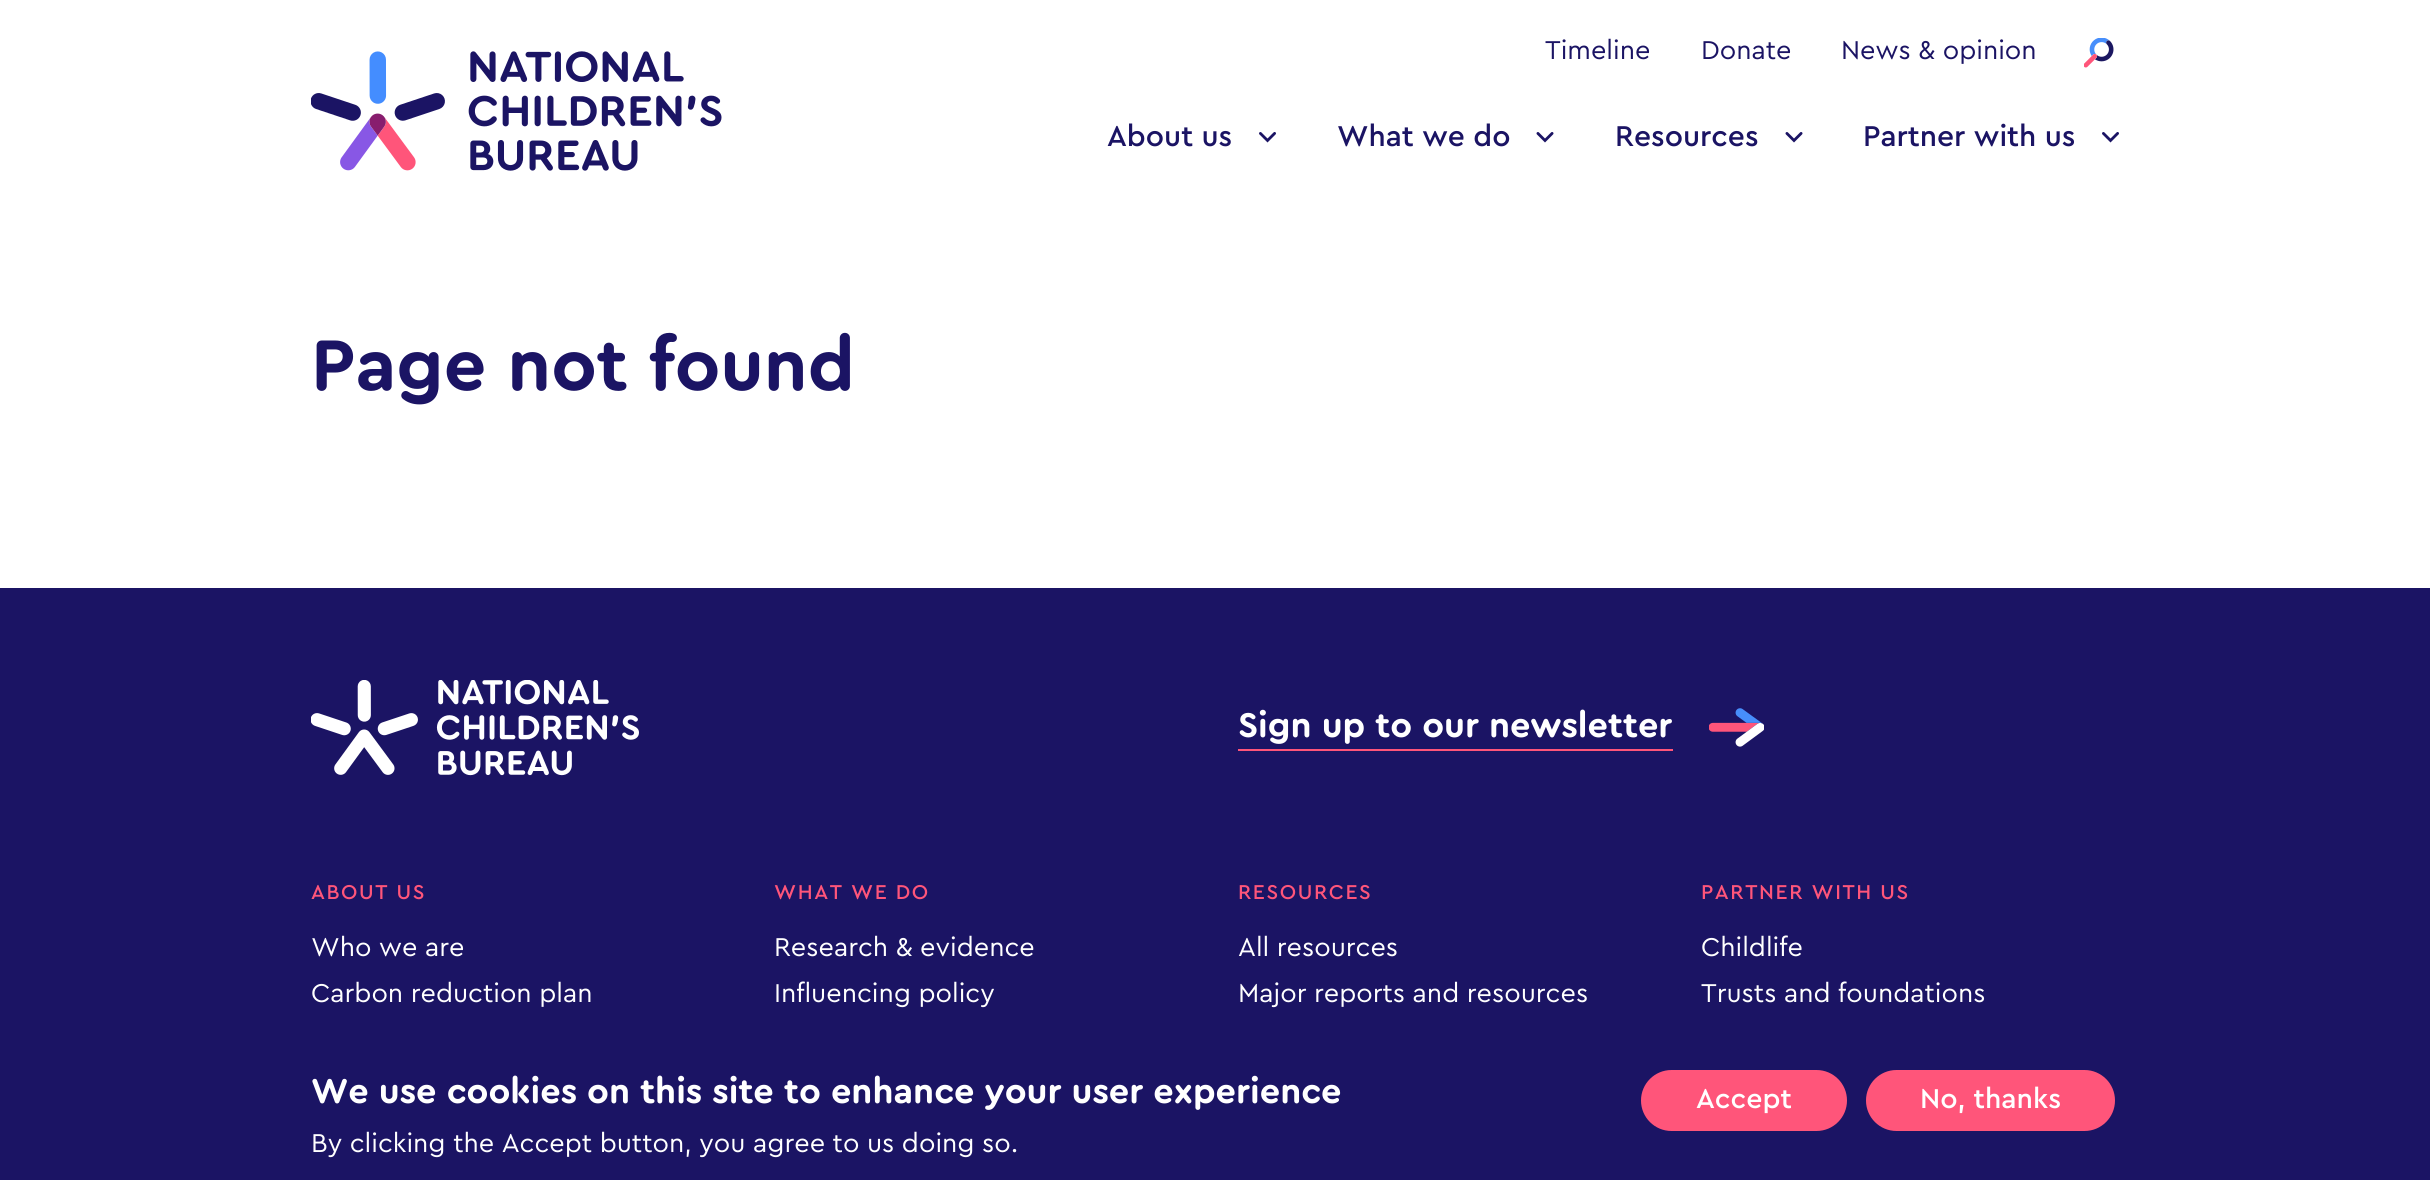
#include <cairo/cairo.h>
#include <math.h>
#include <stddef.h>

static cairo_t *cr;

static void use_color(int r, int g, int b) {
  cairo_set_source_rgb(cr, r / 255.0, g / 255.0, b / 255.0);
}

static void text(double x, double y, const char *s, const char *family, double size, int italic, int bold, int r, int g, int b) {
  cairo_select_font_face(cr, family, italic ? CAIRO_FONT_SLANT_ITALIC : CAIRO_FONT_SLANT_NORMAL,
    bold ? CAIRO_FONT_WEIGHT_BOLD : CAIRO_FONT_WEIGHT_NORMAL);
  cairo_set_font_size(cr, size);
  use_color(r, g, b);
  cairo_move_to(cr, x, y);
  cairo_show_text(cr, s);
}

static void spaced_text(double x, double y, const char *s, double letter, double word) {
  cairo_move_to(cr, x, y);
  while (*s) {
    char ch[5] = {0};
    int n = 0;
    do ch[n++] = *s++; while ((*s & 0xC0) == 0x80);
    cairo_show_text(cr, ch);
    cairo_rel_move_to(cr, letter + word * (*ch == ' '), 0);
  }
}

static void box(double x, double y, double w, double h, int r, int g, int b) {
  use_color(r, g, b);
  cairo_rectangle(cr, x, y, w, h);
  cairo_fill(cr);
}

static void round_rect(double x, double y, double w, double h, double r) {
  cairo_new_sub_path(cr);
  cairo_arc(cr, x + w - r, y + h - r, r, 0, M_PI / 2);
  cairo_arc(cr, x + r, y + h - r, r, M_PI / 2, M_PI);
  cairo_arc(cr, x + r, y + r, r, M_PI, 1.5 * M_PI);
  cairo_arc(cr, x + w - r, y + r, r, 1.5 * M_PI, 2 * M_PI);
  cairo_close_path(cr);
}

static void picture(const char *path, double x, double y, double w, double h) {
  cairo_surface_t *image = cairo_image_surface_create_from_png(path);
  cairo_save(cr);
  cairo_set_source_surface(cr, image, x, y);
  cairo_rectangle(cr, x, y, w, h);
  cairo_fill(cr);
  cairo_restore(cr);
  cairo_surface_destroy(image);
}

static void draw(void) {
  use_color(255, 255, 255);
  cairo_paint(cr);
  picture("img_01.png", 311, 51, 411, 120);
  picture("img_02.png", 2084, 38, 30, 30);
  picture("img_03.png", 1259, 132, 17, 11);
  picture("img_04.png", 1536, 132, 18, 11);
  picture("img_04.png", 1785, 132, 18, 11);
  picture("img_03.png", 2102, 132, 17, 11);
  box(0, 588, 2430, 592, 27, 20, 100);
  picture("img_05.png", 311, 680, 328, 96);
  box(1238, 749, 435, 2, 255, 85, 122);
  picture("img_06.png", 1709, 708, 55, 39);
  round_rect(1641, 1070, 206, 61, 30.5);
  cairo_fill(cr);
  round_rect(1866, 1070, 249, 61, 30.5);
  cairo_fill(cr);
  text(1545, 59, "Timeline", "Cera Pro", 27, 0, 0, 27, 20, 100);
  text(1701, 59, "Donate", "Cera Pro", 27, 0, 0, 27, 20, 100);
  text(1841, 59, "News & opinion", "Cera Pro", 27, 0, 0, 27, 20, 100);
  text(1107, 146, "About us", "Cera Pro Medium", 30, 0, 0, 27, 20, 100);
  text(1337, 146, "What we do", "Cera Pro Medium", 30, 0, 0, 27, 20, 100);
  text(1615, 146, "Resources", "Cera Pro Medium", 30, 0, 0, 27, 20, 100);
  text(1863, 146, "Partner with us", "Cera Pro Medium", 30, 0, 0, 27, 20, 100);
  text(311, 390, "Page not found", "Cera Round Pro", 75, 0, 1, 27, 20, 100);
  text(1238, 737, "Sign up to our newsletter", "Cera Round Pro", 36, 0, 1, 255, 255, 255);
  cairo_select_font_face(cr, "Cera Pro Medium", CAIRO_FONT_SLANT_NORMAL, CAIRO_FONT_WEIGHT_NORMAL);
  cairo_set_font_size(cr, 21);
  use_color(255, 85, 122);
  spaced_text(311, 899, "ABOUT US", 1.6, 0);
  text(311, 956, "Who we are", "Cera Pro", 27, 0, 0, 255, 255, 255);
  text(311, 1002, "Carbon reduction plan", "Cera Pro", 27, 0, 0, 255, 255, 255);
  cairo_select_font_face(cr, "Cera Pro Medium", CAIRO_FONT_SLANT_NORMAL, CAIRO_FONT_WEIGHT_NORMAL);
  cairo_set_font_size(cr, 21);
  use_color(255, 85, 122);
  spaced_text(774, 899, "WHAT WE DO", 1.6, 0);
  text(774, 956, "Research & evidence", "Cera Pro", 27, 0, 0, 255, 255, 255);
  text(774, 1002, "Influencing policy", "Cera Pro", 27, 0, 0, 255, 255, 255);
  cairo_select_font_face(cr, "Cera Pro Medium", CAIRO_FONT_SLANT_NORMAL, CAIRO_FONT_WEIGHT_NORMAL);
  cairo_set_font_size(cr, 21);
  use_color(255, 85, 122);
  spaced_text(1238, 899, "RESOURCES", 1.6, 0);
  text(1238, 956, "All resources", "Cera Pro", 27, 0, 0, 255, 255, 255);
  text(1238, 1002, "Major reports and resources", "Cera Pro", 27, 0, 0, 255, 255, 255);
  cairo_select_font_face(cr, "Cera Pro Medium", CAIRO_FONT_SLANT_NORMAL, CAIRO_FONT_WEIGHT_NORMAL);
  cairo_set_font_size(cr, 21);
  use_color(255, 85, 122);
  spaced_text(1701, 899, "PARTNER WITH US", 1.6, 0);
  text(1701, 956, "Childlife", "Cera Pro", 27, 0, 0, 255, 255, 255);
  text(1701, 1002, "Trusts and foundations", "Cera Pro", 27, 0, 0, 255, 255, 255);
  text(311, 1103, "We use cookies on this site to enhance your user experience", "Cera Round Pro", 36, 0, 1, 255, 255, 255);
  text(311, 1152, "By clicking the Accept button, you agree to us doing so.", "Cera Pro", 27, 0, 0, 255, 255, 255);
  text(1696, 1108, "Accept", "Cera Pro Medium", 28.5, 0, 0, 255, 255, 255);
  text(1920, 1108, "No, thanks", "Cera Pro Medium", 28.5, 0, 0, 255, 255, 255);
}

int main(void) {
  cairo_surface_t *surface = cairo_image_surface_create(CAIRO_FORMAT_RGB24, 2430, 1180);
  cr = cairo_create(surface);
  cairo_font_options_t *options = cairo_font_options_create();
  cairo_font_options_set_hint_metrics(options, CAIRO_HINT_METRICS_OFF);
  cairo_font_options_set_hint_style(options, CAIRO_HINT_STYLE_NONE);
  cairo_set_font_options(cr, options);
  cairo_set_miter_limit(cr, 4);
  draw();
  cairo_surface_write_to_png(surface, "out.png");
  cairo_font_options_destroy(options);
  cairo_destroy(cr);
  cairo_surface_destroy(surface);
  return 0;
}
